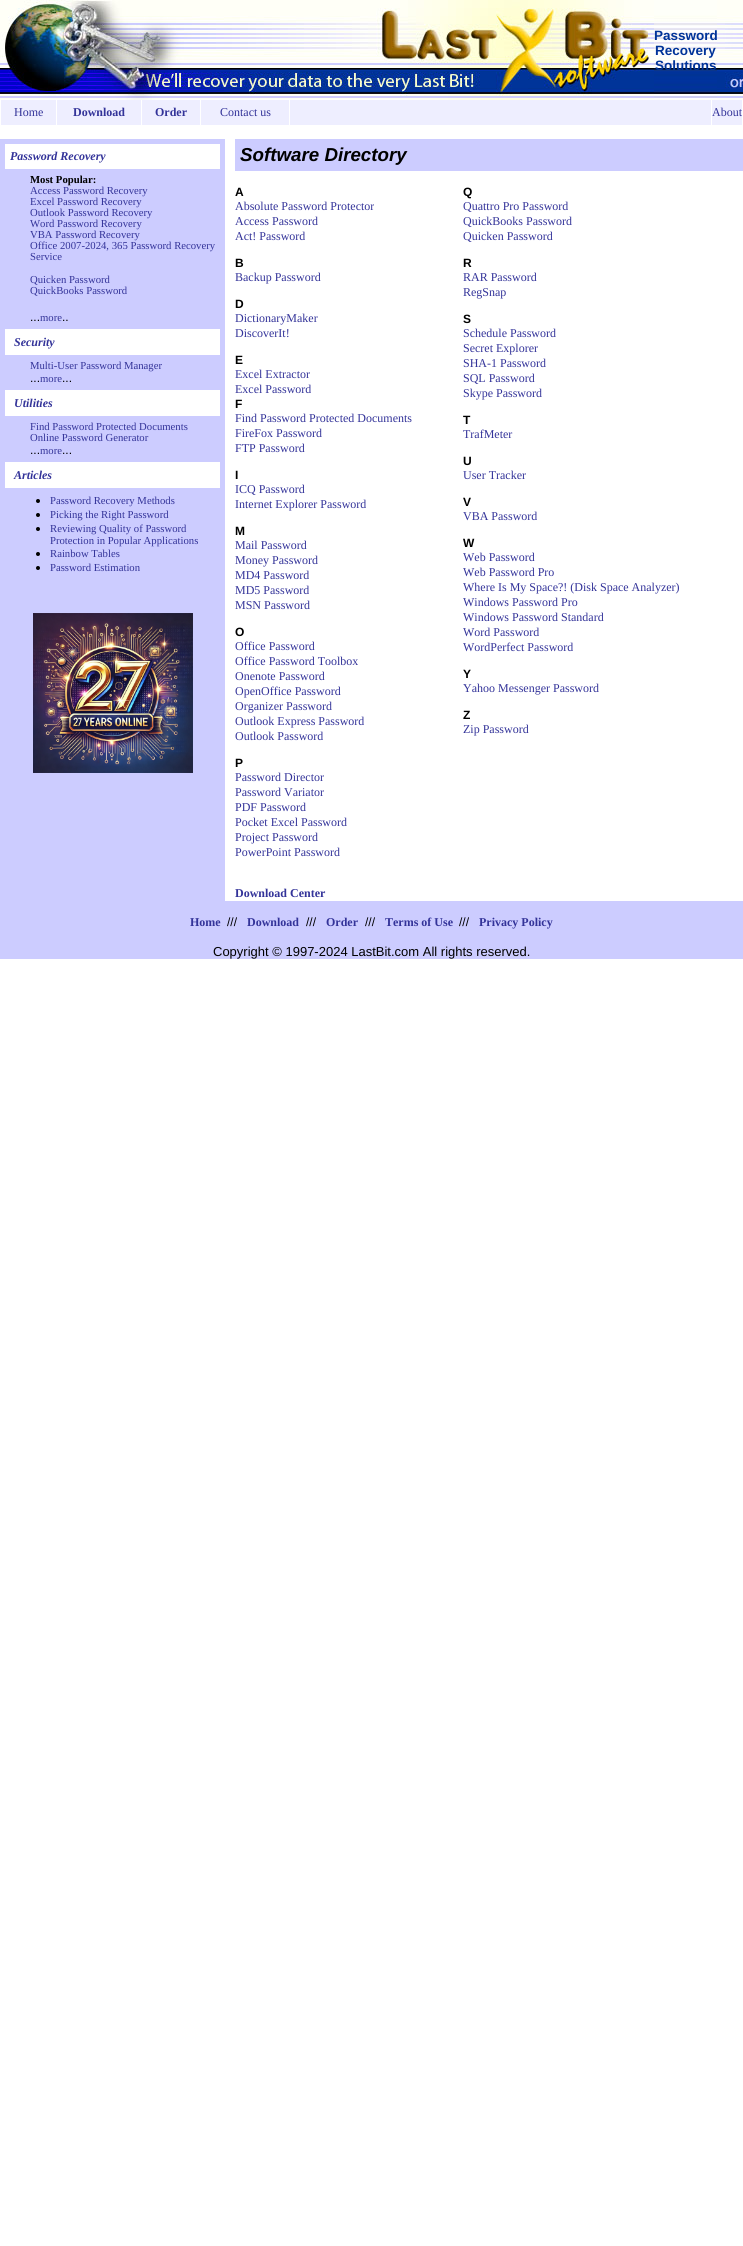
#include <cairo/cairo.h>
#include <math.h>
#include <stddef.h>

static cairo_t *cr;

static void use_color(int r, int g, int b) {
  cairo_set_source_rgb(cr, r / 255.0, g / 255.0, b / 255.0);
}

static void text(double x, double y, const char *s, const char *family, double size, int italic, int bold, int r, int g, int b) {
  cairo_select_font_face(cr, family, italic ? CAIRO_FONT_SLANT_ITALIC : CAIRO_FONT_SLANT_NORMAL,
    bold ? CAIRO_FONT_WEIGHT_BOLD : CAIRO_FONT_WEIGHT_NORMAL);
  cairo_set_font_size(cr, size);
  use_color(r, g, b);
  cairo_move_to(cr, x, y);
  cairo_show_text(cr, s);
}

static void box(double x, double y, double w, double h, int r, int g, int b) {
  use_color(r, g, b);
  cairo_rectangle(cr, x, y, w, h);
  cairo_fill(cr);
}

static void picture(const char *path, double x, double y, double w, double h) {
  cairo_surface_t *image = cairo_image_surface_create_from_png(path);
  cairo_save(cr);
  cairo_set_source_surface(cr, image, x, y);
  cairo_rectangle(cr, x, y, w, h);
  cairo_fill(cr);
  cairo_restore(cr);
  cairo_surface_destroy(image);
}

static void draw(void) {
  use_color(255, 255, 255);
  cairo_paint(cr);
  picture("img_01.png", 0, 0, 654, 100);
  picture("img_02.png", 654, 0, 63, 100);
  picture("img_03.png", 717, 0, 26, 100);
  box(1, 100, 55, 25, 238, 238, 255);
  box(57, 100, 84, 25, 238, 238, 255);
  box(142, 100, 58, 25, 238, 238, 255);
  box(201, 100, 88, 25, 238, 238, 255);
  box(290, 100, 421, 25, 238, 238, 255);
  box(712, 100, 30, 25, 238, 238, 255);
  box(0, 139, 225, 762, 204, 204, 255);
  box(5, 144, 215, 25, 255, 255, 255);
  box(5, 329, 215, 26, 255, 255, 255);
  box(5, 390, 215, 26, 255, 255, 255);
  box(5, 462, 215, 26, 255, 255, 255);
  use_color(0, 0, 0);
  cairo_arc(cr, 38, 501, 2, 0, 2 * M_PI);
  cairo_fill(cr);
  cairo_arc(cr, 38, 515, 2, 0, 2 * M_PI);
  cairo_fill(cr);
  cairo_arc(cr, 38, 529, 2, 0, 2 * M_PI);
  cairo_fill(cr);
  cairo_arc(cr, 38, 554, 2, 0, 2 * M_PI);
  cairo_fill(cr);
  cairo_arc(cr, 38, 568, 2, 0, 2 * M_PI);
  cairo_fill(cr);
  picture("img_04.png", 33, 613, 160, 160);
  box(235, 139, 508, 32, 204, 204, 255);
  box(0, 901, 743, 58, 204, 204, 255);
  text(654, 40, "Password", "Liberation Sans", 13.5, 0, 1, 0, 51, 153);
  text(655, 55, "Recovery", "Liberation Sans", 13.5, 0, 1, 0, 51, 153);
  text(655, 70, "Solutions", "Liberation Sans", 13.5, 0, 1, 0, 51, 153);
  text(14, 116, "Home", "Liberation Serif", 12, 0, 0, 51, 51, 153);
  text(73, 116, "Download", "Liberation Serif", 12, 0, 1, 51, 51, 153);
  text(155, 116, "Order", "Liberation Serif", 12, 0, 1, 51, 51, 153);
  text(220, 116, "Contact us", "Liberation Serif", 12, 0, 0, 51, 51, 153);
  text(712, 116, "About", "Liberation Serif", 12, 0, 0, 51, 51, 153);
  text(10, 160, "Password Recovery", "Liberation Serif", 12, 1, 1, 51, 51, 153);
  text(30, 183, "Most Popular:", "Liberation Serif", 10.7, 0, 1, 0, 0, 0);
  text(30, 194, "Access Password Recovery", "Liberation Serif", 10.7, 0, 0, 51, 51, 153);
  text(30, 205, "Excel Password Recovery", "Liberation Serif", 10.7, 0, 0, 51, 51, 153);
  text(30, 216, "Outlook Password Recovery", "Liberation Serif", 10.7, 0, 0, 51, 51, 153);
  text(30, 227, "Word Password Recovery", "Liberation Serif", 10.7, 0, 0, 51, 51, 153);
  text(30, 238, "VBA Password Recovery", "Liberation Serif", 10.7, 0, 0, 51, 51, 153);
  text(30, 249, "Office 2007-2024, 365 Password Recovery", "Liberation Serif", 10.7, 0, 0, 51, 51, 153);
  text(30, 260, "Service", "Liberation Serif", 10.7, 0, 0, 51, 51, 153);
  text(30, 283, "Quicken Password", "Liberation Serif", 10.7, 0, 0, 51, 51, 153);
  text(30, 294, "QuickBooks Password", "Liberation Serif", 10.7, 0, 0, 51, 51, 153);
  text(30, 321, "...", "Liberation Sans", 12, 0, 0, 0, 0, 0);
  text(40, 321, "more", "Liberation Serif", 10.7, 0, 0, 51, 51, 153);
  text(62, 321, "..", "Liberation Sans", 12, 0, 0, 0, 0, 0);
  text(14, 346, "Security", "Liberation Serif", 12, 1, 1, 51, 51, 153);
  text(30, 369, "Multi-User Password Manager", "Liberation Serif", 10.7, 0, 0, 51, 51, 153);
  text(30, 382, "...", "Liberation Sans", 12, 0, 0, 0, 0, 0);
  text(40, 382, "more", "Liberation Serif", 10.7, 0, 0, 51, 51, 153);
  text(62, 382, "...", "Liberation Sans", 12, 0, 0, 0, 0, 0);
  text(14, 407, "Utilities", "Liberation Serif", 12, 1, 1, 51, 51, 153);
  text(30, 430, "Find Password Protected Documents", "Liberation Serif", 10.7, 0, 0, 51, 51, 153);
  text(30, 441, "Online Password Generator", "Liberation Serif", 10.7, 0, 0, 51, 51, 153);
  text(30, 454, "...", "Liberation Sans", 12, 0, 0, 0, 0, 0);
  text(40, 454, "more", "Liberation Serif", 10.7, 0, 0, 51, 51, 153);
  text(62, 454, "...", "Liberation Sans", 12, 0, 0, 0, 0, 0);
  text(14, 479, "Articles", "Liberation Serif", 12, 1, 1, 51, 51, 153);
  text(50, 504, "Password Recovery Methods", "Liberation Serif", 10.7, 0, 0, 51, 51, 153);
  text(50, 518, "Picking the Right Password", "Liberation Serif", 10.7, 0, 0, 51, 51, 153);
  text(50, 532, "Reviewing Quality of Password", "Liberation Serif", 10.7, 0, 0, 51, 51, 153);
  text(50, 544, "Protection in Popular Applications", "Liberation Serif", 10.7, 0, 0, 51, 51, 153);
  text(50, 557, "Rainbow Tables", "Liberation Serif", 10.7, 0, 0, 51, 51, 153);
  text(50, 571, "Password Estimation", "Liberation Serif", 10.7, 0, 0, 51, 51, 153);
  text(240, 161, "Software Directory", "Liberation Sans", 18.75, 1, 1, 0, 0, 0);
  text(235, 196, "A", "Liberation Sans", 12, 0, 1, 0, 0, 0);
  text(235, 210, "Absolute Password Protector", "Liberation Serif", 12, 0, 0, 51, 51, 153);
  text(235, 225, "Access Password", "Liberation Serif", 12, 0, 0, 51, 51, 153);
  text(235, 240, "Act! Password", "Liberation Serif", 12, 0, 0, 51, 51, 153);
  text(235, 267, "B", "Liberation Sans", 12, 0, 1, 0, 0, 0);
  text(235, 281, "Backup Password", "Liberation Serif", 12, 0, 0, 51, 51, 153);
  text(235, 308, "D", "Liberation Sans", 12, 0, 1, 0, 0, 0);
  text(235, 322, "DictionaryMaker", "Liberation Serif", 12, 0, 0, 51, 51, 153);
  text(235, 337, "DiscoverIt!", "Liberation Serif", 12, 0, 0, 51, 51, 153);
  text(235, 364, "E", "Liberation Sans", 12, 0, 1, 0, 0, 0);
  text(235, 378, "Excel Extractor", "Liberation Serif", 12, 0, 0, 51, 51, 153);
  text(235, 393, "Excel Password", "Liberation Serif", 12, 0, 0, 51, 51, 153);
  text(235, 408, "F", "Liberation Sans", 12, 0, 1, 0, 0, 0);
  text(235, 422, "Find Password Protected Documents", "Liberation Serif", 12, 0, 0, 51, 51, 153);
  text(235, 437, "FireFox Password", "Liberation Serif", 12, 0, 0, 51, 51, 153);
  text(235, 452, "FTP Password", "Liberation Serif", 12, 0, 0, 51, 51, 153);
  text(235, 479, "I", "Liberation Sans", 12, 0, 1, 0, 0, 0);
  text(235, 493, "ICQ Password", "Liberation Serif", 12, 0, 0, 51, 51, 153);
  text(235, 508, "Internet Explorer Password", "Liberation Serif", 12, 0, 0, 51, 51, 153);
  text(235, 535, "M", "Liberation Sans", 12, 0, 1, 0, 0, 0);
  text(235, 549, "Mail Password", "Liberation Serif", 12, 0, 0, 51, 51, 153);
  text(235, 564, "Money Password", "Liberation Serif", 12, 0, 0, 51, 51, 153);
  text(235, 579, "MD4 Password", "Liberation Serif", 12, 0, 0, 51, 51, 153);
  text(235, 594, "MD5 Password", "Liberation Serif", 12, 0, 0, 51, 51, 153);
  text(235, 609, "MSN Password", "Liberation Serif", 12, 0, 0, 51, 51, 153);
  text(235, 636, "O", "Liberation Sans", 12, 0, 1, 0, 0, 0);
  text(235, 650, "Office Password", "Liberation Serif", 12, 0, 0, 51, 51, 153);
  text(235, 665, "Office Password Toolbox", "Liberation Serif", 12, 0, 0, 51, 51, 153);
  text(235, 680, "Onenote Password", "Liberation Serif", 12, 0, 0, 51, 51, 153);
  text(235, 695, "OpenOffice Password", "Liberation Serif", 12, 0, 0, 51, 51, 153);
  text(235, 710, "Organizer Password", "Liberation Serif", 12, 0, 0, 51, 51, 153);
  text(235, 725, "Outlook Express Password", "Liberation Serif", 12, 0, 0, 51, 51, 153);
  text(235, 740, "Outlook Password", "Liberation Serif", 12, 0, 0, 51, 51, 153);
  text(235, 767, "P", "Liberation Sans", 12, 0, 1, 0, 0, 0);
  text(235, 781, "Password Director", "Liberation Serif", 12, 0, 0, 51, 51, 153);
  text(235, 796, "Password Variator", "Liberation Serif", 12, 0, 0, 51, 51, 153);
  text(235, 811, "PDF Password", "Liberation Serif", 12, 0, 0, 51, 51, 153);
  text(235, 826, "Pocket Excel Password", "Liberation Serif", 12, 0, 0, 51, 51, 153);
  text(235, 841, "Project Password", "Liberation Serif", 12, 0, 0, 51, 51, 153);
  text(235, 856, "PowerPoint Password", "Liberation Serif", 12, 0, 0, 51, 51, 153);
  text(463, 196, "Q", "Liberation Sans", 12, 0, 1, 0, 0, 0);
  text(463, 210, "Quattro Pro Password", "Liberation Serif", 12, 0, 0, 51, 51, 153);
  text(463, 225, "QuickBooks Password", "Liberation Serif", 12, 0, 0, 51, 51, 153);
  text(463, 240, "Quicken Password", "Liberation Serif", 12, 0, 0, 51, 51, 153);
  text(463, 267, "R", "Liberation Sans", 12, 0, 1, 0, 0, 0);
  text(463, 281, "RAR Password", "Liberation Serif", 12, 0, 0, 51, 51, 153);
  text(463, 296, "RegSnap", "Liberation Serif", 12, 0, 0, 51, 51, 153);
  text(463, 323, "S", "Liberation Sans", 12, 0, 1, 0, 0, 0);
  text(463, 337, "Schedule Password", "Liberation Serif", 12, 0, 0, 51, 51, 153);
  text(463, 352, "Secret Explorer", "Liberation Serif", 12, 0, 0, 51, 51, 153);
  text(463, 367, "SHA-1 Password", "Liberation Serif", 12, 0, 0, 51, 51, 153);
  text(463, 382, "SQL Password", "Liberation Serif", 12, 0, 0, 51, 51, 153);
  text(463, 397, "Skype Password", "Liberation Serif", 12, 0, 0, 51, 51, 153);
  text(463, 424, "T", "Liberation Sans", 12, 0, 1, 0, 0, 0);
  text(463, 438, "TrafMeter", "Liberation Serif", 12, 0, 0, 51, 51, 153);
  text(463, 465, "U", "Liberation Sans", 12, 0, 1, 0, 0, 0);
  text(463, 479, "User Tracker", "Liberation Serif", 12, 0, 0, 51, 51, 153);
  text(463, 506, "V", "Liberation Sans", 12, 0, 1, 0, 0, 0);
  text(463, 520, "VBA Password", "Liberation Serif", 12, 0, 0, 51, 51, 153);
  text(463, 547, "W", "Liberation Sans", 12, 0, 1, 0, 0, 0);
  text(463, 561, "Web Password", "Liberation Serif", 12, 0, 0, 51, 51, 153);
  text(463, 576, "Web Password Pro", "Liberation Serif", 12, 0, 0, 51, 51, 153);
  text(463, 591, "Where Is My Space?! (Disk Space Analyzer)", "Liberation Serif", 12, 0, 0, 51, 51, 153);
  text(463, 606, "Windows Password Pro", "Liberation Serif", 12, 0, 0, 51, 51, 153);
  text(463, 621, "Windows Password Standard", "Liberation Serif", 12, 0, 0, 51, 51, 153);
  text(463, 636, "Word Password", "Liberation Serif", 12, 0, 0, 51, 51, 153);
  text(463, 651, "WordPerfect Password", "Liberation Serif", 12, 0, 0, 51, 51, 153);
  text(463, 678, "Y", "Liberation Sans", 12, 0, 1, 0, 0, 0);
  text(463, 692, "Yahoo Messenger Password", "Liberation Serif", 12, 0, 0, 51, 51, 153);
  text(463, 719, "Z", "Liberation Sans", 12, 0, 1, 0, 0, 0);
  text(463, 733, "Zip Password", "Liberation Serif", 12, 0, 0, 51, 51, 153);
  text(235, 897, "Download Center", "Liberation Serif", 12, 0, 1, 51, 51, 153);
  text(190, 926, "Home", "Liberation Serif", 12, 0, 1, 51, 51, 153);
  text(227, 926, "///", "Liberation Sans", 12, 0, 0, 0, 0, 0);
  text(247, 926, "Download", "Liberation Serif", 12, 0, 1, 51, 51, 153);
  text(306, 926, "///", "Liberation Sans", 12, 0, 0, 0, 0, 0);
  text(326, 926, "Order", "Liberation Serif", 12, 0, 1, 51, 51, 153);
  text(365, 926, "///", "Liberation Sans", 12, 0, 0, 0, 0, 0);
  text(385, 926, "Terms of Use", "Liberation Serif", 12, 0, 1, 51, 51, 153);
  text(459, 926, "///", "Liberation Sans", 12, 0, 0, 0, 0, 0);
  text(479, 926, "Privacy Policy", "Liberation Serif", 12, 0, 1, 51, 51, 153);
  text(213, 956, "Copyright © 1997-2024 LastBit.com All rights reserved.", "Liberation Sans", 13, 0, 0, 0, 0, 0);
}

int main(void) {
  cairo_surface_t *surface = cairo_image_surface_create(CAIRO_FORMAT_RGB24, 743, 2246);
  cr = cairo_create(surface);
  cairo_font_options_t *options = cairo_font_options_create();
  cairo_font_options_set_hint_metrics(options, CAIRO_HINT_METRICS_OFF);
  cairo_font_options_set_hint_style(options, CAIRO_HINT_STYLE_NONE);
  cairo_set_font_options(cr, options);
  cairo_set_miter_limit(cr, 4);
  draw();
  cairo_surface_write_to_png(surface, "out.png");
  cairo_font_options_destroy(options);
  cairo_destroy(cr);
  cairo_surface_destroy(surface);
  return 0;
}
